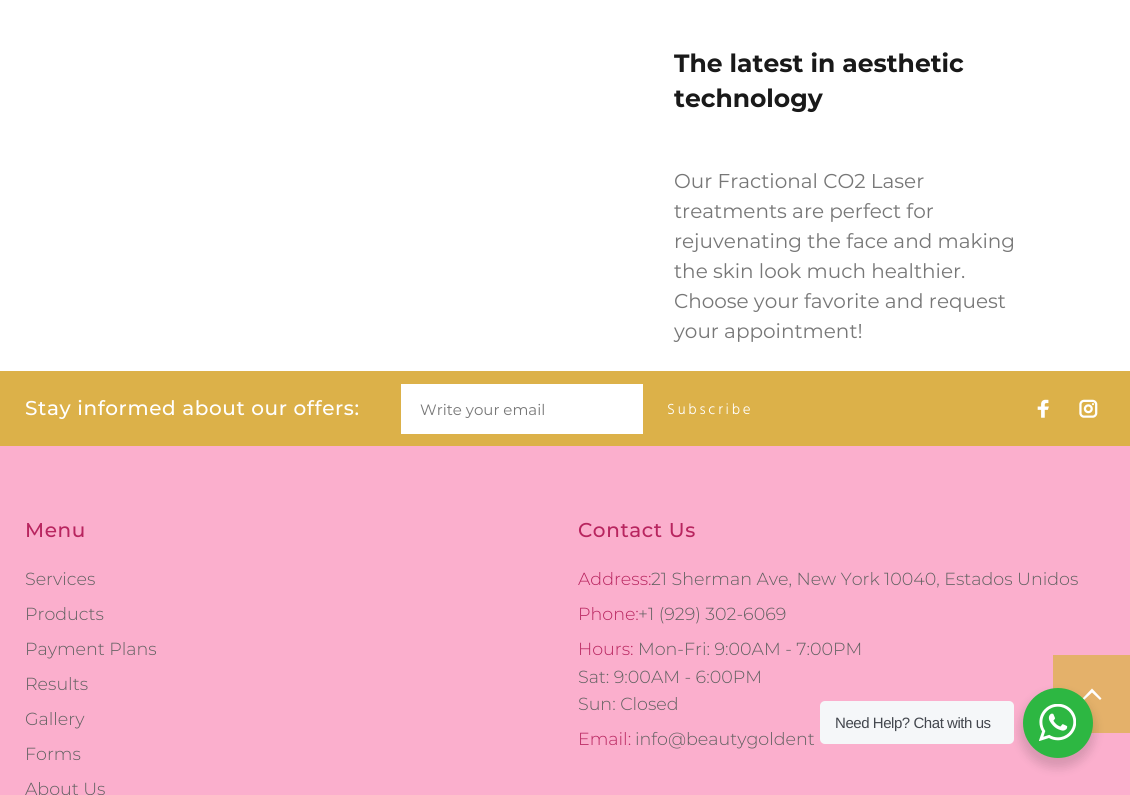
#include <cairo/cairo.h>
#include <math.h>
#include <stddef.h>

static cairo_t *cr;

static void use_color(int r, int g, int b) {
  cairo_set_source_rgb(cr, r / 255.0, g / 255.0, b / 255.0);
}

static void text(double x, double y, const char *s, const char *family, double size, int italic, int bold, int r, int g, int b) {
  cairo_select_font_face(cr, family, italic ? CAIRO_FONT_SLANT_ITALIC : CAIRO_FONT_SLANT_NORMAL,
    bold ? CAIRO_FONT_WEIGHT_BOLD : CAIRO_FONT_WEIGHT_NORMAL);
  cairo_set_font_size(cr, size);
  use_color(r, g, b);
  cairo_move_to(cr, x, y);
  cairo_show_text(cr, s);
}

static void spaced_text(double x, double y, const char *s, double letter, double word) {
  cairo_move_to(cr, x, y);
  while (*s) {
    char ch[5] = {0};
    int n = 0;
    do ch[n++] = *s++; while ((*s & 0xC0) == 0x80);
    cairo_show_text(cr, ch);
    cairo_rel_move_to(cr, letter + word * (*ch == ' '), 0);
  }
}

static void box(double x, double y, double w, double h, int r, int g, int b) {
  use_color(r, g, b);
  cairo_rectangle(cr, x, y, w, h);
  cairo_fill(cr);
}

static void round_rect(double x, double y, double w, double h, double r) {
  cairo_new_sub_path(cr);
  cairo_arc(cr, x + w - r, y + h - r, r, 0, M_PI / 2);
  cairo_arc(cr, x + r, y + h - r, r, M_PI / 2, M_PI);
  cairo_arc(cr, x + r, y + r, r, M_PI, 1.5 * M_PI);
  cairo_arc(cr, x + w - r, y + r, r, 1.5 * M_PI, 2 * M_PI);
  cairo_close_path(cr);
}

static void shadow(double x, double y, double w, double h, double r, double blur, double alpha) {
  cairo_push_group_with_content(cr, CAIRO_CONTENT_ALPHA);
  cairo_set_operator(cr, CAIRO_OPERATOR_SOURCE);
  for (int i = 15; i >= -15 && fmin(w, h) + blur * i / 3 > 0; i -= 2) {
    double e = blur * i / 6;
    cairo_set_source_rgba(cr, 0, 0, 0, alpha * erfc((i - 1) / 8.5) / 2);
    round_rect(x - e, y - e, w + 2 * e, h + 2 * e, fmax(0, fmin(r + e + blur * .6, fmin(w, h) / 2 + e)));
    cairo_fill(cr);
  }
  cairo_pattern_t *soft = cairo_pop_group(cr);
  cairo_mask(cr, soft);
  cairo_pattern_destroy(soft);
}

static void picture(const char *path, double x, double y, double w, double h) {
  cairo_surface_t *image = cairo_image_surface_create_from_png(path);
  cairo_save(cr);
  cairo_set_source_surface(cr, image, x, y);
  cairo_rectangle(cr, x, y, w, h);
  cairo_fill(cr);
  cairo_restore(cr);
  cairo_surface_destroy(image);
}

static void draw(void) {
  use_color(255, 255, 255);
  cairo_paint(cr);
  box(0, 446, 1130, 349, 251, 175, 205);
  box(0, 371, 1130, 75, 220, 177, 73);
  box(401, 384, 242, 50, 255, 255, 255);
  picture("img_01.png", 1037, 399, 12, 19);
  picture("img_02.png", 1079, 399, 19, 19);
  box(1053, 655, 77, 78, 228, 177, 106);
  use_color(255, 255, 255);
  cairo_new_path(cr);
  cairo_move_to(cr, 1100, 700);
  cairo_line_to(cr, 1092, 692.5);
  cairo_line_to(cr, 1084, 700);
  cairo_line_to(cr, 1082.5, 698.5);
  cairo_line_to(cr, 1092, 688.5);
  cairo_line_to(cr, 1101.5, 698.5);
  cairo_close_path(cr);
  cairo_fill(cr);
  use_color(0, 0, 0);
  shadow(1020, 693, 75, 75, 37.5, 5, 0.14);
  use_color(245, 247, 249);
  round_rect(820, 701, 194, 43, 5);
  cairo_fill(cr);
  use_color(45, 183, 66);
  cairo_arc(cr, 1058, 723, 35, 0, 2 * M_PI);
  cairo_fill(cr);
  picture("img_03.png", 1039, 704, 37, 37);
  text(674, 72, "The latest in aesthetic", "Montserrat", 25, 0, 1, 25, 25, 25);
  text(674, 107, "technology", "Montserrat", 25, 0, 1, 25, 25, 25);
  text(674, 188, "Our Fractional CO2 Laser", "Montserrat", 20, 0, 0, 119, 119, 119);
  text(674, 218, "treatments are perfect for", "Montserrat", 20, 0, 0, 119, 119, 119);
  text(674, 248, "rejuvenating the face and making", "Montserrat", 20, 0, 0, 119, 119, 119);
  text(674, 278, "the skin look much healthier.", "Montserrat", 20, 0, 0, 119, 119, 119);
  text(674, 308, "Choose your favorite and request", "Montserrat", 20, 0, 0, 119, 119, 119);
  text(674, 338, "your appointment!", "Montserrat", 20, 0, 0, 119, 119, 119);
  cairo_select_font_face(cr, "Montserrat Medium", CAIRO_FONT_SLANT_NORMAL, CAIRO_FONT_WEIGHT_NORMAL);
  use_color(255, 255, 255);
  spaced_text(25, 415, "Stay informed about our offers:", 0.6, 0);
  text(420, 415, "Write your email", "Montserrat", 15, 0, 0, 119, 119, 119);
  cairo_select_font_face(cr, "Hind Light", CAIRO_FONT_SLANT_NORMAL, CAIRO_FONT_WEIGHT_NORMAL);
  use_color(255, 255, 255);
  spaced_text(667, 414, "Subscribe", 2.75, 0);
  cairo_select_font_face(cr, "Montserrat Medium", CAIRO_FONT_SLANT_NORMAL, CAIRO_FONT_WEIGHT_NORMAL);
  cairo_set_font_size(cr, 20);
  use_color(184, 37, 95);
  spaced_text(25, 537, "Menu", 0.6, 0);
  text(25, 585, "Services", "Montserrat Light", 17.5, 0, 0, 96, 96, 96);
  text(25, 620, "Products", "Montserrat Light", 17.5, 0, 0, 96, 96, 96);
  text(25, 655, "Payment Plans", "Montserrat Light", 17.5, 0, 0, 96, 96, 96);
  text(25, 690, "Results", "Montserrat Light", 17.5, 0, 0, 96, 96, 96);
  text(25, 725, "Gallery", "Montserrat Light", 17.5, 0, 0, 96, 96, 96);
  text(25, 760, "Forms", "Montserrat Light", 17.5, 0, 0, 96, 96, 96);
  text(25, 795, "About Us", "Montserrat Light", 17.5, 0, 0, 96, 96, 96);
  cairo_select_font_face(cr, "Montserrat Medium", CAIRO_FONT_SLANT_NORMAL, CAIRO_FONT_WEIGHT_NORMAL);
  cairo_set_font_size(cr, 20);
  use_color(184, 37, 95);
  spaced_text(578, 537, "Contact Us", 0.6, 0);
  text(578, 585, "Address:", "Montserrat Light", 17.5, 0, 0, 184, 37, 95);
  text(651, 585, "21 Sherman Ave, New York 10040, Estados Unidos", "Montserrat Light", 17.5, 0, 0, 96, 96, 96);
  text(578, 620, "Phone:", "Montserrat Light", 17.5, 0, 0, 184, 37, 95);
  text(638, 620, "+1 (929) 302-6069", "Montserrat Light", 17.5, 0, 0, 96, 96, 96);
  text(578, 655, "Hours:", "Montserrat Light", 17.5, 0, 0, 184, 37, 95);
  text(638, 655, "Mon-Fri: 9:00AM - 7:00PM", "Montserrat Light", 17.5, 0, 0, 96, 96, 96);
  text(578, 683, "Sat: 9:00AM - 6:00PM", "Montserrat Light", 17.5, 0, 0, 96, 96, 96);
  text(578, 710, "Sun: Closed", "Montserrat Light", 17.5, 0, 0, 96, 96, 96);
  text(578, 745, "Email:", "Montserrat Light", 17.5, 0, 0, 184, 37, 95);
  text(635, 745, "info@beautygoldent", "Montserrat Light", 17.5, 0, 0, 96, 96, 96);
  cairo_select_font_face(cr, "Liberation Sans", CAIRO_FONT_SLANT_NORMAL, CAIRO_FONT_WEIGHT_NORMAL);
  cairo_set_font_size(cr, 15);
  use_color(67, 71, 78);
  spaced_text(835, 728, "Need Help? Chat with us", -0.45, 0);
}

int main(void) {
  cairo_surface_t *surface = cairo_image_surface_create(CAIRO_FORMAT_RGB24, 1130, 795);
  cr = cairo_create(surface);
  cairo_font_options_t *options = cairo_font_options_create();
  cairo_font_options_set_hint_metrics(options, CAIRO_HINT_METRICS_OFF);
  cairo_font_options_set_hint_style(options, CAIRO_HINT_STYLE_NONE);
  cairo_set_font_options(cr, options);
  cairo_set_miter_limit(cr, 4);
  draw();
  cairo_surface_write_to_png(surface, "out.png");
  cairo_font_options_destroy(options);
  cairo_destroy(cr);
  cairo_surface_destroy(surface);
  return 0;
}
